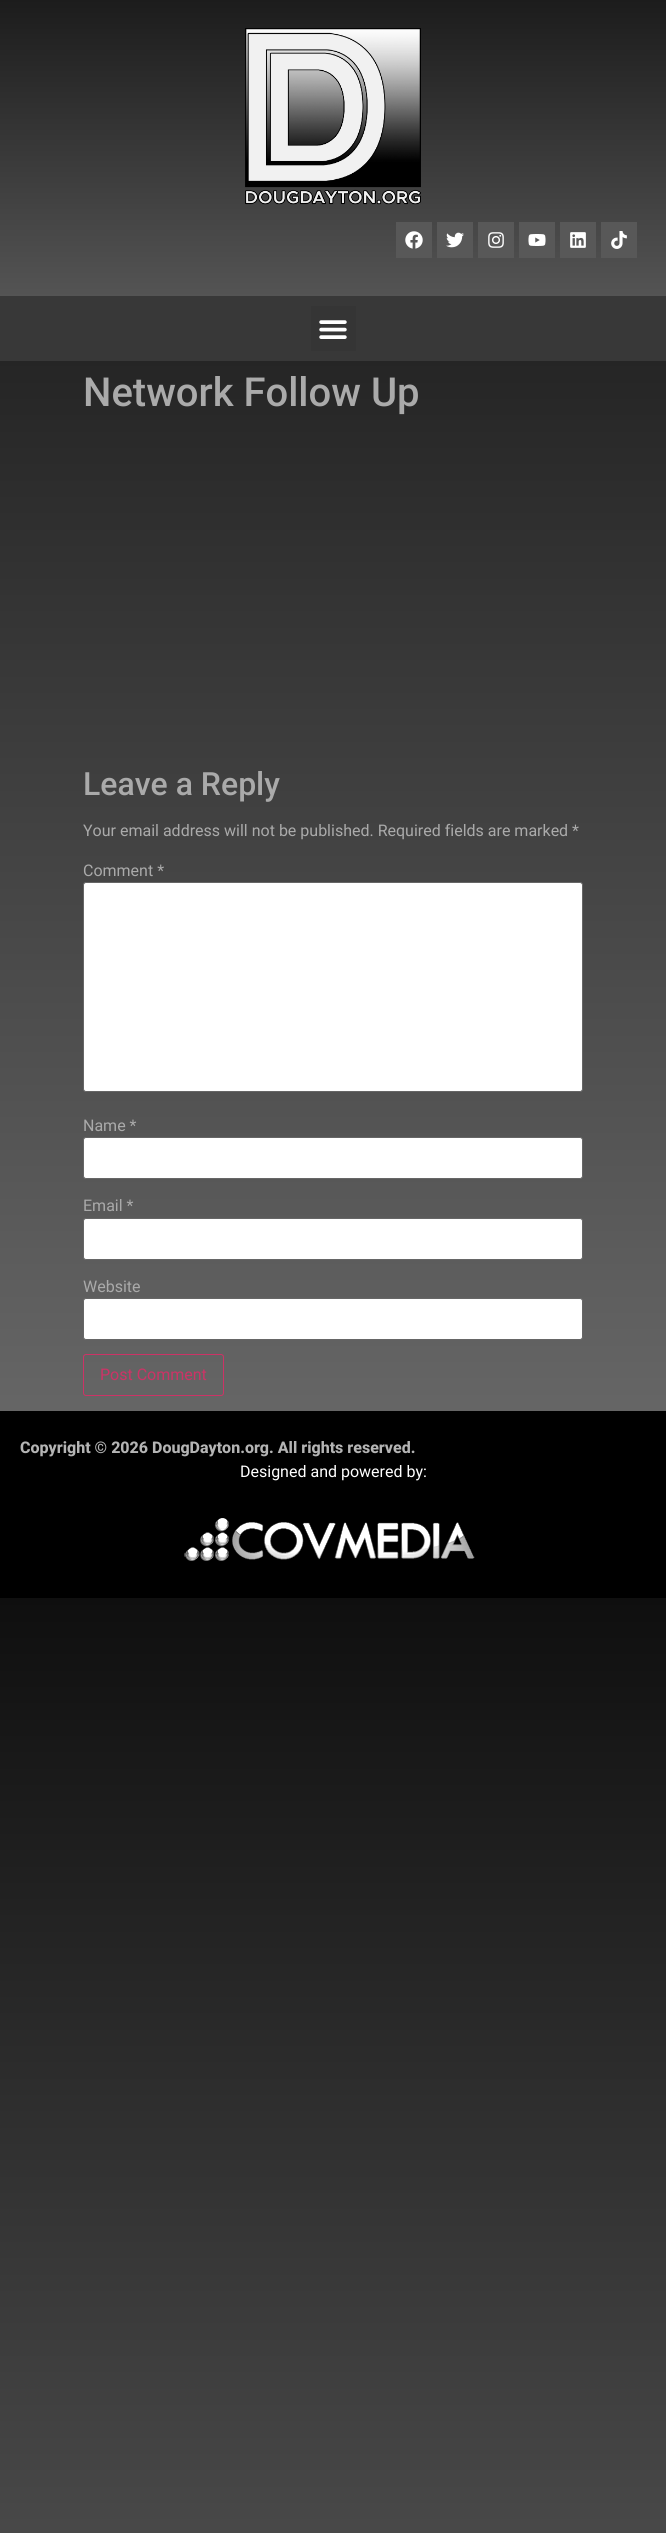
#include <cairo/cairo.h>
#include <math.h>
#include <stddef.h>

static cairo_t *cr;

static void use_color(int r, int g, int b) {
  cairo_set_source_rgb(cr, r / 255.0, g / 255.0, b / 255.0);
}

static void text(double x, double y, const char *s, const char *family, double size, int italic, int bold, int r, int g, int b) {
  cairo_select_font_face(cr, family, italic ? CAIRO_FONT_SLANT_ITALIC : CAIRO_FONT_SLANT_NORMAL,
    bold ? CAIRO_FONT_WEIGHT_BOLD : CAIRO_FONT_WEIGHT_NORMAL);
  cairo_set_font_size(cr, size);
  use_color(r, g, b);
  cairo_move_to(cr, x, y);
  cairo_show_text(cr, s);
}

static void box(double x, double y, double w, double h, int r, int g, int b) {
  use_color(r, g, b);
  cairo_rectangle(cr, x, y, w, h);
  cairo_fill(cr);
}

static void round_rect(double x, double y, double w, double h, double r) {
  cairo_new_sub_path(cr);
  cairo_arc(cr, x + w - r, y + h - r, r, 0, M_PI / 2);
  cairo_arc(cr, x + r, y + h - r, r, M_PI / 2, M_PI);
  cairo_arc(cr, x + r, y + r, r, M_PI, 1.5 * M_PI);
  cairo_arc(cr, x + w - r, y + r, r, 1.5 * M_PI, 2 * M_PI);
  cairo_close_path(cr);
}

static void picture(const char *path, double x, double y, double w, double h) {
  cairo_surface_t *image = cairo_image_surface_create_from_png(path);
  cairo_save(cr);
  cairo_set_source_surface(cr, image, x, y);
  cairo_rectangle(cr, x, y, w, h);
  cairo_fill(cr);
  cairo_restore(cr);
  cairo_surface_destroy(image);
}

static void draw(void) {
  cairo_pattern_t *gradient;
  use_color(255, 255, 255);
  cairo_paint(cr);
  gradient = cairo_pattern_create_linear(333, 0, 333, 1598);
  cairo_pattern_add_color_stop_rgba(gradient, 0, 0.059, 0.059, 0.059, 1);
  cairo_pattern_add_color_stop_rgba(gradient, 1, 0.443, 0.443, 0.443, 1);
  cairo_set_source(cr, gradient);
  cairo_pattern_destroy(gradient);
  cairo_rectangle(cr, 0, 361, 666, 1050);
  cairo_fill(cr);
  gradient = cairo_pattern_create_linear(333, 1598, 333, 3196);
  cairo_pattern_add_color_stop_rgba(gradient, 0, 0.059, 0.059, 0.059, 1);
  cairo_pattern_add_color_stop_rgba(gradient, 1, 0.443, 0.443, 0.443, 1);
  cairo_set_source(cr, gradient);
  cairo_pattern_destroy(gradient);
  cairo_rectangle(cr, 0, 1598, 666, 935);
  cairo_fill(cr);
  gradient = cairo_pattern_create_linear(333, 0, 333, 296);
  cairo_pattern_add_color_stop_rgba(gradient, 0, 0.11, 0.11, 0.11, 1);
  cairo_pattern_add_color_stop_rgba(gradient, 1, 0.329, 0.329, 0.329, 1);
  cairo_set_source(cr, gradient);
  cairo_pattern_destroy(gradient);
  cairo_rectangle(cr, 0, 0, 666, 296);
  cairo_fill(cr);
  picture("img_01.png", 245, 28, 176, 177);
  box(396, 222, 36, 36, 88, 88, 88);
  picture("img_02.png", 405, 231, 18, 18);
  box(437, 222, 36, 36, 88, 88, 88);
  picture("img_03.png", 446, 232, 18, 16);
  box(478, 222, 36, 36, 88, 88, 88);
  picture("img_04.png", 488, 232, 16, 16);
  box(519, 222, 36, 36, 88, 88, 88);
  picture("img_05.png", 528, 234, 18, 12);
  box(560, 222, 36, 36, 88, 88, 88);
  picture("img_06.png", 570, 232, 16, 16);
  box(601, 222, 36, 36, 88, 88, 88);
  picture("img_07.png", 611, 231, 16, 18);
  box(0, 296, 666, 65, 56, 56, 56);
  box(311, 306, 45, 45, 53, 53, 53);
  picture("img_08.png", 319, 320, 28, 19);
  use_color(255, 255, 255);
  round_rect(83.5, 882.5, 499, 209, 2.5);
  cairo_fill_preserve(cr);
  use_color(102, 102, 102);
  cairo_set_line_width(cr, 1);
  cairo_stroke(cr);
  use_color(255, 255, 255);
  round_rect(83.5, 1137.5, 499, 41, 2.5);
  cairo_fill_preserve(cr);
  use_color(102, 102, 102);
  cairo_stroke(cr);
  use_color(255, 255, 255);
  round_rect(83.5, 1218.5, 499, 41, 2.5);
  cairo_fill_preserve(cr);
  use_color(102, 102, 102);
  cairo_stroke(cr);
  use_color(255, 255, 255);
  round_rect(83.5, 1298.5, 499, 41, 2.5);
  cairo_fill_preserve(cr);
  use_color(102, 102, 102);
  cairo_stroke(cr);
  round_rect(83.5, 1354.5, 140, 41, 2.5);
  use_color(204, 51, 102);
  cairo_stroke(cr);
  box(0, 1411, 666, 187, 0, 0, 0);
  picture("img_09.png", 184, 1518, 291, 43);
  text(83, 406, "Network Follow Up", "Roboto Medium", 40, 0, 0, 170, 170, 170);
  text(83, 795, "Leave a Reply", "Roboto Medium", 32, 0, 0, 170, 170, 170);
  text(83, 836, "Your email address will not be published. Required fields are marked *", "Roboto", 16, 0, 0, 170, 170, 170);
  text(83, 876, "Comment *", "Roboto", 16, 0, 0, 170, 170, 170);
  text(83, 1131, "Name *", "Roboto", 16, 0, 0, 170, 170, 170);
  text(83, 1211, "Email *", "Roboto", 16, 0, 0, 170, 170, 170);
  text(83, 1292, "Website", "Roboto", 16, 0, 0, 170, 170, 170);
  text(100, 1380, "Post Comment", "Roboto", 16, 0, 0, 204, 51, 102);
  text(20, 1453, "Copyright © 2026 DougDayton.org. All rights reserved.", "Roboto ExtraBold", 16, 0, 0, 180, 180, 180);
  text(240, 1477, "Designed and powered by:", "Roboto", 16, 0, 0, 255, 255, 255);
}

int main(void) {
  cairo_surface_t *surface = cairo_image_surface_create(CAIRO_FORMAT_RGB24, 666, 2533);
  cr = cairo_create(surface);
  cairo_font_options_t *options = cairo_font_options_create();
  cairo_font_options_set_hint_metrics(options, CAIRO_HINT_METRICS_OFF);
  cairo_font_options_set_hint_style(options, CAIRO_HINT_STYLE_NONE);
  cairo_set_font_options(cr, options);
  cairo_set_miter_limit(cr, 4);
  draw();
  cairo_surface_write_to_png(surface, "out.png");
  cairo_font_options_destroy(options);
  cairo_destroy(cr);
  cairo_surface_destroy(surface);
  return 0;
}
